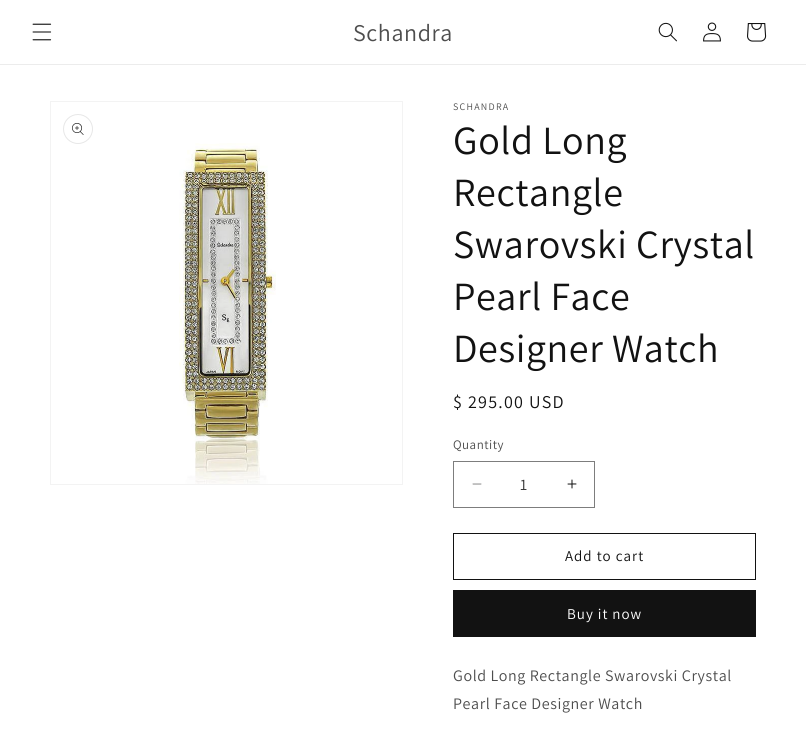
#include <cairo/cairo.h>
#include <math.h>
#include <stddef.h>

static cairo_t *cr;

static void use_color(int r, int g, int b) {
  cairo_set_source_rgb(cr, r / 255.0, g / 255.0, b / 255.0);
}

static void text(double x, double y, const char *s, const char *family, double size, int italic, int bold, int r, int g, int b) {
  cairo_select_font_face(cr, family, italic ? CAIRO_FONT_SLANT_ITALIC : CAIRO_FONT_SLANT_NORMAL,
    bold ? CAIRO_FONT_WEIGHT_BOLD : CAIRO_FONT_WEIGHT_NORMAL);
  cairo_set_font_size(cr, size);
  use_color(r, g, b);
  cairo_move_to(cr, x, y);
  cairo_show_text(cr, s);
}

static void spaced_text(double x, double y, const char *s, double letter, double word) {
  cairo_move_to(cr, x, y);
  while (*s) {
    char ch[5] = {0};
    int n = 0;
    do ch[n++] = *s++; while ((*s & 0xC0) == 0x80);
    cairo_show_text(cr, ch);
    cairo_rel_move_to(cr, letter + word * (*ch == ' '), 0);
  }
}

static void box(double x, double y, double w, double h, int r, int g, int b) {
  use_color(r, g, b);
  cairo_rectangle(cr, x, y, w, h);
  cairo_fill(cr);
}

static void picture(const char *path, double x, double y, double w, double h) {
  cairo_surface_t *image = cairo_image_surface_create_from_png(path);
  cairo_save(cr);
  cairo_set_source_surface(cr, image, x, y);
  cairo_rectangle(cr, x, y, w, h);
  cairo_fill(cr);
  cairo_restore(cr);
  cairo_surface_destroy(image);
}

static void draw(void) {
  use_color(255, 255, 255);
  cairo_paint(cr);
  box(0, 64, 806, 1, 236, 236, 236);
  picture("img_01.png", 32, 23, 20, 18);
  picture("img_02.png", 658, 22, 19, 20);
  picture("img_03.png", 703, 22, 18, 20);
  picture("img_04.png", 747, 23, 20, 19);
  cairo_rectangle(cr, 50.5, 101.5, 352, 383);
  use_color(243, 243, 243);
  cairo_set_line_width(cr, 1);
  cairo_stroke(cr);
  cairo_arc(cr, 78, 129, 14.5, 0, 2 * M_PI);
  use_color(231, 231, 231);
  cairo_stroke(cr);
  picture("img_05.png", 72, 123, 12, 12);
  picture("img_06.png", 179, 143, 97, 341);
  picture("img_07.png", 472, 483, 10, 2);
  picture("img_08.png", 567, 479, 10, 10);
  cairo_rectangle(cr, 453.5, 461.5, 141, 46);
  use_color(125, 125, 125);
  cairo_stroke(cr);
  cairo_rectangle(cr, 453.5, 533.5, 302, 46);
  use_color(18, 18, 18);
  cairo_stroke(cr);
  box(453, 590, 303, 47, 18, 18, 18);
  cairo_select_font_face(cr, "Assistant", CAIRO_FONT_SLANT_NORMAL, CAIRO_FONT_WEIGHT_NORMAL);
  cairo_set_font_size(cr, 24);
  use_color(77, 77, 77);
  spaced_text(353, 41, "Schandra", 0.6, 0);
  cairo_set_font_size(cr, 10);
  spaced_text(453, 110, "SCHANDRA", 1.25, 0);
  cairo_set_font_size(cr, 40);
  use_color(18, 18, 18);
  spaced_text(453, 154, "Gold Long", 0.6, 0);
  spaced_text(453, 206, "Rectangle", 0.6, 0);
  spaced_text(453, 258, "Swarovski Crystal", 0.6, 0);
  spaced_text(453, 310, "Pearl Face", 0.6, 0);
  spaced_text(453, 362, "Designer Watch", 0.6, 0);
  cairo_set_font_size(cr, 18);
  spaced_text(453, 408, "$ 295.00 USD", 1.25, 0);
  cairo_set_font_size(cr, 13);
  use_color(77, 77, 77);
  spaced_text(453, 449, "Quantity", 0.5, 0);
  text(520, 490, "1", "Assistant", 16, 0, 0, 54, 54, 54);
  cairo_set_font_size(cr, 15);
  use_color(18, 18, 18);
  spaced_text(565, 561, "Add to cart", 1, 0);
  use_color(255, 255, 255);
  spaced_text(567, 619, "Buy it now", 1, 0);
  cairo_set_font_size(cr, 16);
  use_color(77, 77, 77);
  spaced_text(453, 681, "Gold Long Rectangle Swarovski Crystal", 0.6, 0);
  spaced_text(453, 709, "Pearl Face Designer Watch", 0.6, 0);
}

int main(void) {
  cairo_surface_t *surface = cairo_image_surface_create(CAIRO_FORMAT_RGB24, 806, 738);
  cr = cairo_create(surface);
  cairo_font_options_t *options = cairo_font_options_create();
  cairo_font_options_set_hint_metrics(options, CAIRO_HINT_METRICS_OFF);
  cairo_font_options_set_hint_style(options, CAIRO_HINT_STYLE_NONE);
  cairo_set_font_options(cr, options);
  cairo_set_miter_limit(cr, 4);
  draw();
  cairo_surface_write_to_png(surface, "out.png");
  cairo_font_options_destroy(options);
  cairo_destroy(cr);
  cairo_surface_destroy(surface);
  return 0;
}
